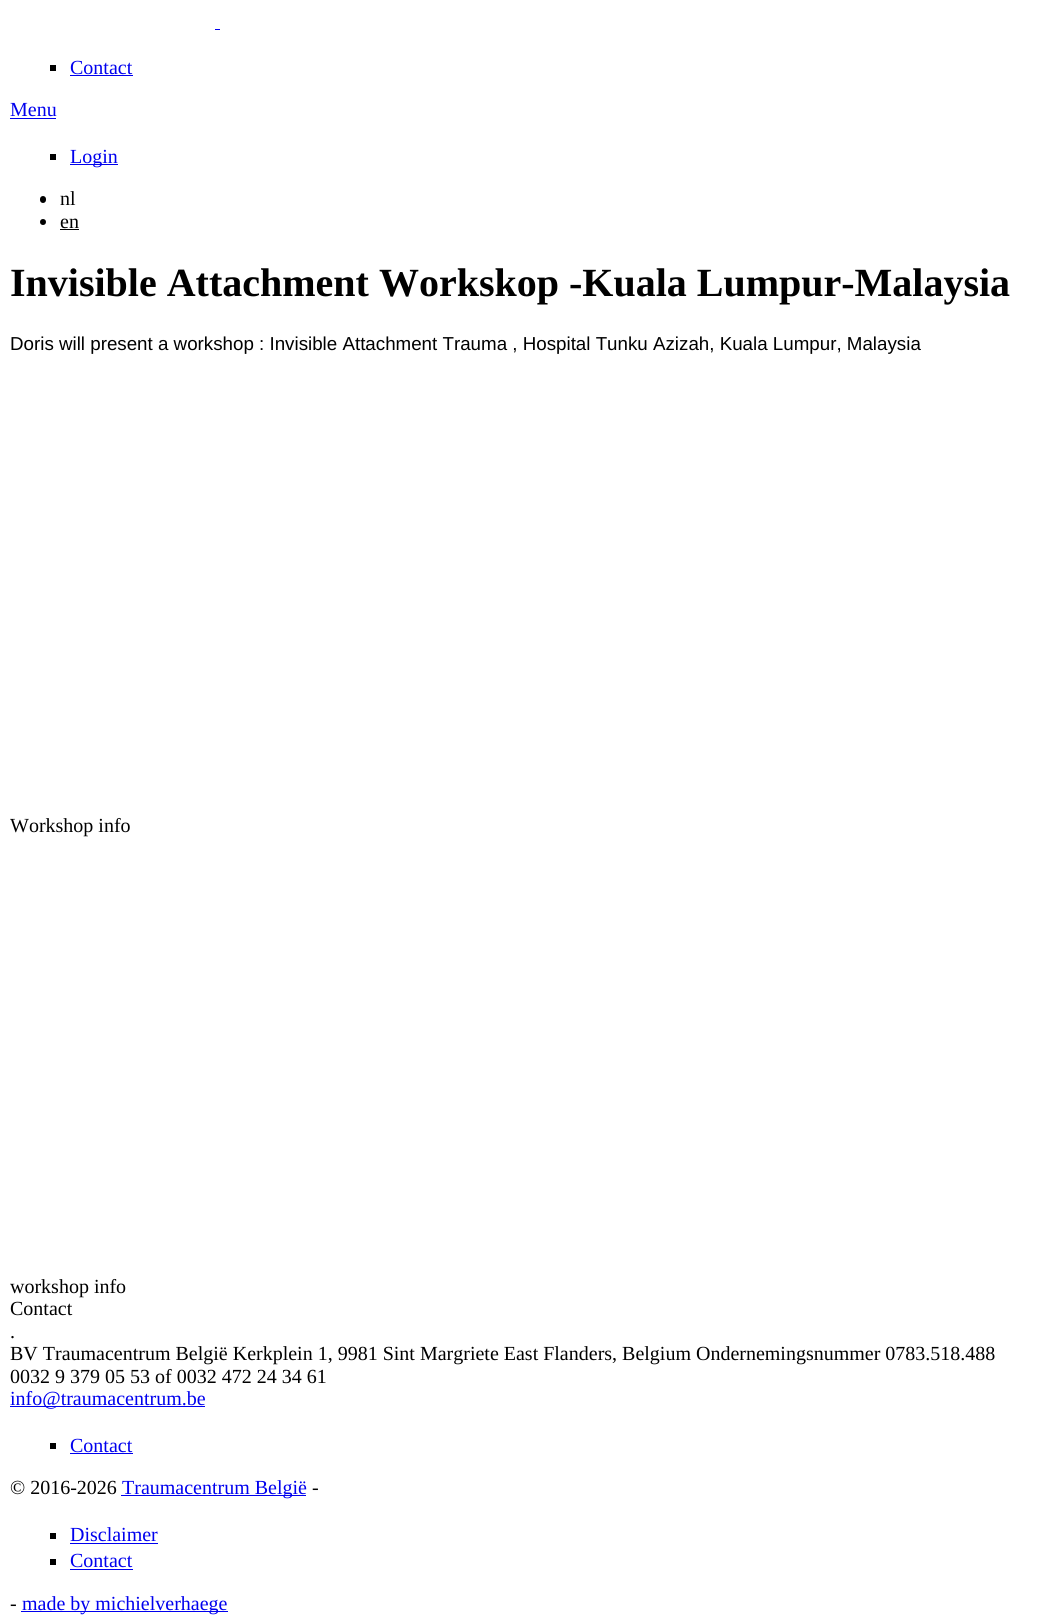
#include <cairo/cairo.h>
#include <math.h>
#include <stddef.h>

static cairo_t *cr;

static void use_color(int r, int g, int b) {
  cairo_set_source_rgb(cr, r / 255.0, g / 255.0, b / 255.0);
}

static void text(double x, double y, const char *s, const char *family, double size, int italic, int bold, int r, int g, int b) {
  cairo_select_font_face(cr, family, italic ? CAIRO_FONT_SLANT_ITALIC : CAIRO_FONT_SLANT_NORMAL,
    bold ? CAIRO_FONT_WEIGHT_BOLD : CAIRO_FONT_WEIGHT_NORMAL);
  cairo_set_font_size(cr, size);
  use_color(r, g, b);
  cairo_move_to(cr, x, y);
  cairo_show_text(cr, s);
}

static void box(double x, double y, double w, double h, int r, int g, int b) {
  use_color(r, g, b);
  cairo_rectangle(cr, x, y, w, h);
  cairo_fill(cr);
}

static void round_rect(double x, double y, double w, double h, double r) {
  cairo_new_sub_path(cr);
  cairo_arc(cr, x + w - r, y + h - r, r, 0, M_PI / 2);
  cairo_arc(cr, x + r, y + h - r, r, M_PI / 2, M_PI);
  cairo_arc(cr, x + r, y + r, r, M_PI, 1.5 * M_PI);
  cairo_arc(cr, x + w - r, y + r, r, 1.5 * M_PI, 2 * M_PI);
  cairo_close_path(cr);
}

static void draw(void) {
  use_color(255, 255, 255);
  cairo_paint(cr);
  box(215, 29, 5, 1, 0, 0, 238);
  box(50, 65, 6, 6, 0, 0, 0);
  box(70, 75, 63, 1, 0, 0, 238);
  box(10, 118, 46, 1, 0, 0, 238);
  box(50, 154, 6, 6, 0, 0, 0);
  box(70, 164, 48, 1, 0, 0, 238);
  use_color(0, 0, 0);
  round_rect(40, 196, 6, 7, 3);
  cairo_fill(cr);
  cairo_arc(cr, 43, 222, 3, 0, 2 * M_PI);
  cairo_fill(cr);
  box(60, 229, 19, 1, 0, 0, 0);
  box(10, 1406, 195, 1, 0, 0, 238);
  box(50, 1443, 6, 6, 0, 0, 0);
  box(70, 1453, 63, 1, 0, 0, 238);
  box(121, 1495, 185, 1, 0, 0, 238);
  box(50, 1533, 6, 6, 0, 0, 0);
  box(70, 1543, 88, 1, 0, 0, 238);
  box(50, 1559, 6, 6, 0, 0, 0);
  box(70, 1569, 63, 1, 0, 0, 238);
  box(21, 1611, 207, 1, 0, 0, 238);
  text(70, 74, "Contact", "Liberation Serif", 20, 0, 0, 0, 0, 238);
  text(10, 116, "Menu", "Liberation Serif", 20, 0, 0, 0, 0, 238);
  text(70, 163, "Login", "Liberation Serif", 20, 0, 0, 0, 0, 238);
  text(60, 205, "nl", "Liberation Serif", 20, 0, 0, 0, 0, 0);
  text(60, 228, "en", "Liberation Serif", 20, 0, 0, 0, 0, 0);
  text(10, 296, "Invisible Attachment Workskop -Kuala Lumpur-Malaysia", "Liberation Serif", 40, 0, 1, 0, 0, 0);
  text(10, 350, "Doris will present a workshop : Invisible Attachment Trauma , Hospital Tunku Azizah, Kuala Lumpur, Malaysia", "Liberation Sans", 18.75, 0, 0, 0, 0, 0);
  text(10, 832, "Workshop info", "Liberation Serif", 20, 0, 0, 0, 0, 0);
  text(10, 1293, "workshop info", "Liberation Serif", 20, 0, 0, 0, 0, 0);
  text(10, 1315, "Contact", "Liberation Serif", 20, 0, 0, 0, 0, 0);
  text(10, 1338, ".", "Liberation Serif", 20, 0, 0, 0, 0, 0);
  text(10, 1360, "BV Traumacentrum België Kerkplein 1, 9981 Sint Margriete East Flanders, Belgium Ondernemingsnummer 0783.518.488", "Liberation Serif", 20, 0, 0, 0, 0, 0);
  text(10, 1383, "0032 9 379 05 53 of 0032 472 24 34 61", "Liberation Serif", 20, 0, 0, 0, 0, 0);
  text(10, 1405, "info@traumacentrum.be", "Liberation Serif", 20, 0, 0, 0, 0, 238);
  text(70, 1452, "Contact", "Liberation Serif", 20, 0, 0, 0, 0, 238);
  text(10, 1494, "© 2016-2026", "Liberation Serif", 20, 0, 0, 0, 0, 0);
  text(122, 1494, "Traumacentrum België", "Liberation Serif", 20, 0, 0, 0, 0, 238);
  text(312, 1494, "-", "Liberation Serif", 20, 0, 0, 0, 0, 0);
  text(70, 1541, "Disclaimer", "Liberation Serif", 20, 0, 0, 0, 0, 238);
  text(70, 1567, "Contact", "Liberation Serif", 20, 0, 0, 0, 0, 238);
  text(10, 1610, "-", "Liberation Serif", 20, 0, 0, 0, 0, 0);
  text(22, 1610, "made by michielverhaege", "Liberation Serif", 20, 0, 0, 0, 0, 238);
}

int main(void) {
  cairo_surface_t *surface = cairo_image_surface_create(CAIRO_FORMAT_RGB24, 1047, 1624);
  cr = cairo_create(surface);
  cairo_font_options_t *options = cairo_font_options_create();
  cairo_font_options_set_hint_metrics(options, CAIRO_HINT_METRICS_OFF);
  cairo_font_options_set_hint_style(options, CAIRO_HINT_STYLE_NONE);
  cairo_set_font_options(cr, options);
  cairo_set_miter_limit(cr, 4);
  draw();
  cairo_surface_write_to_png(surface, "out.png");
  cairo_font_options_destroy(options);
  cairo_destroy(cr);
  cairo_surface_destroy(surface);
  return 0;
}
